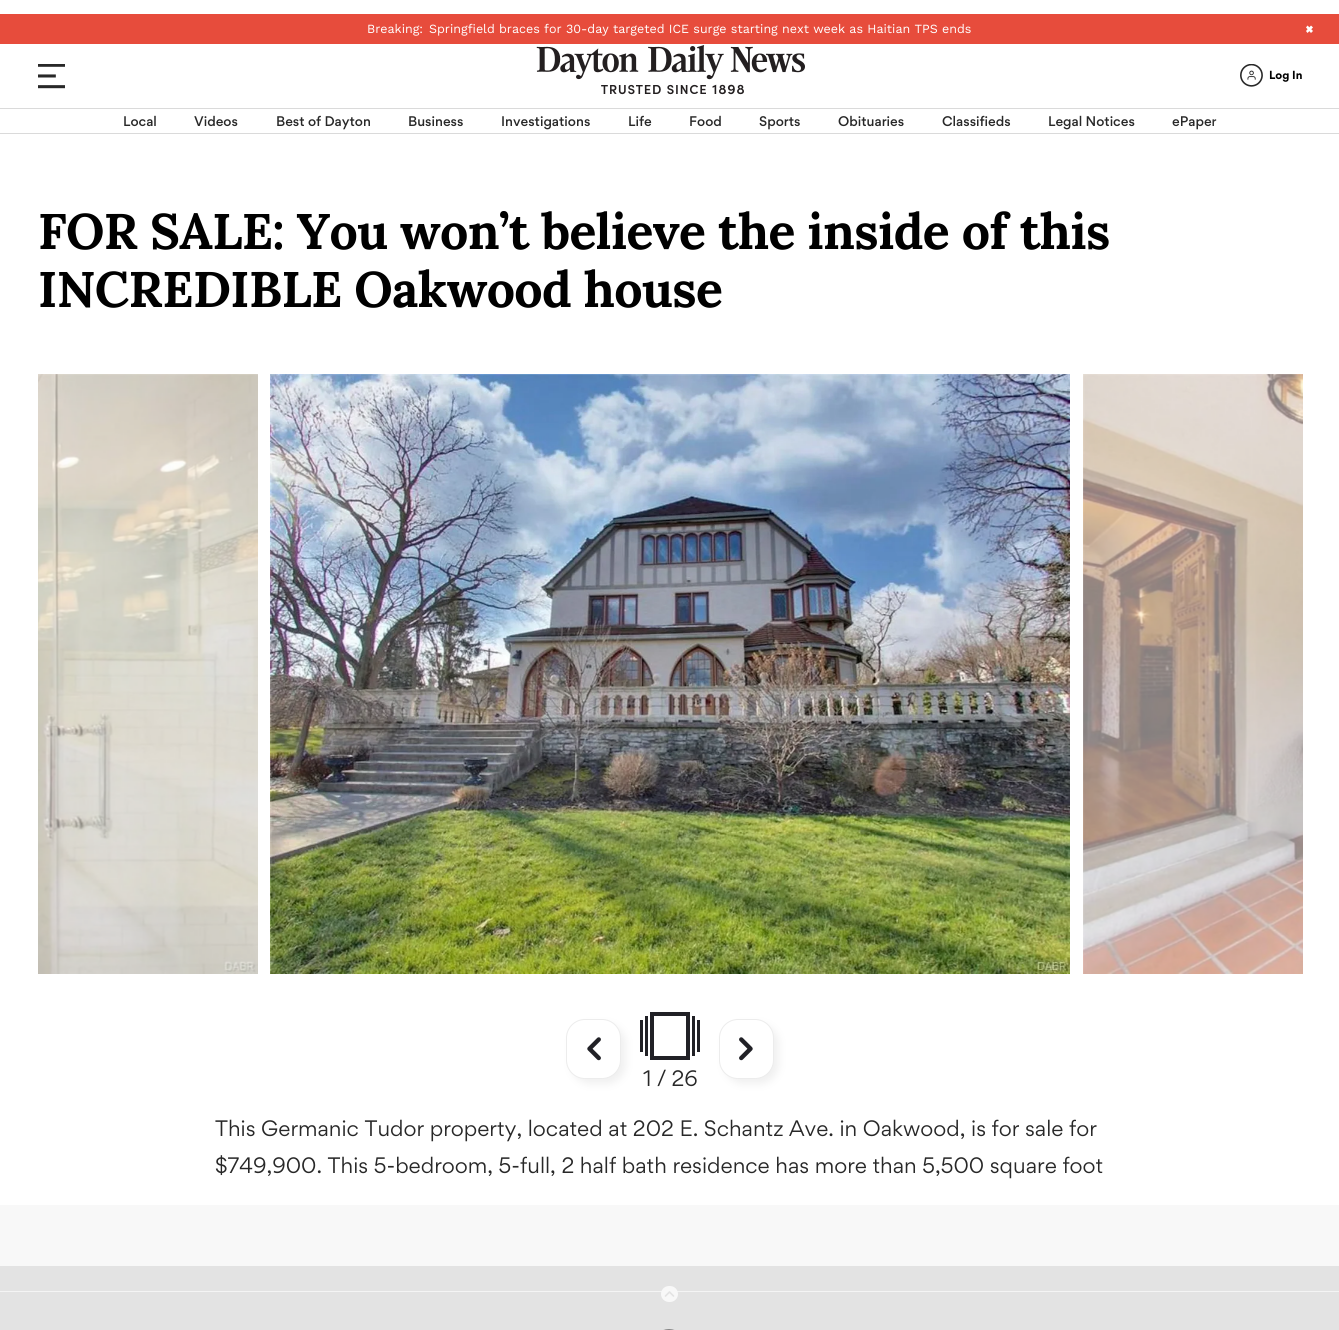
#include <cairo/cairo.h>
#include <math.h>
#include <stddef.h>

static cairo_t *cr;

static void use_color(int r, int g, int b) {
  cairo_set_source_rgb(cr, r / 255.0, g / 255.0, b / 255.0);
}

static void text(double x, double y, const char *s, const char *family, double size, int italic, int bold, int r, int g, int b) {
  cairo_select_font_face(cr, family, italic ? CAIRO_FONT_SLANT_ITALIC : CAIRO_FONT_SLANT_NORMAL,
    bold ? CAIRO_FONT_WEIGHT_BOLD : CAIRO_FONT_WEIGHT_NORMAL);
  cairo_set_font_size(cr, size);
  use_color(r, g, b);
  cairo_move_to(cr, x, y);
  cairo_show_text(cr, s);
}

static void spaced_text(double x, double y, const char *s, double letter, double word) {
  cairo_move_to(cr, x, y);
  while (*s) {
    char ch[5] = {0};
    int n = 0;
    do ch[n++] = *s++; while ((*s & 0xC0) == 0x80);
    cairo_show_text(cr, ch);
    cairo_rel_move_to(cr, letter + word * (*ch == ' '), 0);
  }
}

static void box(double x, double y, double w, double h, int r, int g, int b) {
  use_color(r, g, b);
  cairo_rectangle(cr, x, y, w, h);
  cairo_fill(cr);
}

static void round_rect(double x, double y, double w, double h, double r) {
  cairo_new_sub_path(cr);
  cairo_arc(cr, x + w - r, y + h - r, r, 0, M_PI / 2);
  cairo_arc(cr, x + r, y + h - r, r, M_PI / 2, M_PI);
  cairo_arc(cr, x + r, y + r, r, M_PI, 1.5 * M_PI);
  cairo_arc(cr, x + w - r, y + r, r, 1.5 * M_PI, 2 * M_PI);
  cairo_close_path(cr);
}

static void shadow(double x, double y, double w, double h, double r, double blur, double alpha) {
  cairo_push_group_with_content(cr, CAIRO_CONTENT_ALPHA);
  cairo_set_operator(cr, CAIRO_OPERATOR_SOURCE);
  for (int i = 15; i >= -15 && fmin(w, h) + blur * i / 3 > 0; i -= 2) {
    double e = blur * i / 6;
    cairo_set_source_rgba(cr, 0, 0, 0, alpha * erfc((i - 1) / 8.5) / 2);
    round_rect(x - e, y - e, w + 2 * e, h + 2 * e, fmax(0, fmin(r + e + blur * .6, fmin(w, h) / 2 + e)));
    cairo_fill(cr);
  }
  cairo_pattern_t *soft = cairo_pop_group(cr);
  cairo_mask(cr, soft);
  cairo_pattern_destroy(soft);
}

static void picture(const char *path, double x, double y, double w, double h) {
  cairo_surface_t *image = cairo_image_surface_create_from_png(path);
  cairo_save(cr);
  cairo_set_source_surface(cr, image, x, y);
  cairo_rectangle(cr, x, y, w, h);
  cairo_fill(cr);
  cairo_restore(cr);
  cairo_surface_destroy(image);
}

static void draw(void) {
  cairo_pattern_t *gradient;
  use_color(255, 255, 255);
  cairo_paint(cr);
  box(0, 14, 1339, 30, 231, 76, 60);
  use_color(255, 255, 255);
  cairo_new_path(cr);
  cairo_move_to(cr, 1307.5, 25.5);
  cairo_line_to(cr, 1313, 31);
  cairo_line_to(cr, 1311, 33);
  cairo_line_to(cr, 1306, 27.5);
  cairo_close_path(cr);
  cairo_fill(cr);
  cairo_new_path(cr);
  cairo_move_to(cr, 1306, 31);
  cairo_line_to(cr, 1311, 25.5);
  cairo_line_to(cr, 1313, 27.5);
  cairo_line_to(cr, 1307.5, 33);
  cairo_close_path(cr);
  cairo_fill(cr);
  picture("img_01.png", 38, 64, 27, 25);
  picture("img_02.png", 536, 45, 269, 50);
  picture("img_03.png", 1240, 64, 23, 23);
  box(0, 108, 1339, 1, 218, 218, 218);
  box(0, 133, 1339, 1, 218, 218, 218);
  picture("img_04.png", 38, 374, 220, 600);
  picture("img_05.png", 270, 374, 800, 600);
  picture("img_06.png", 1083, 374, 220, 600);
  use_color(230, 230, 230);
  shadow(571, 1024, 55, 60, 19, 4, 0.6);
  use_color(255, 255, 255);
  round_rect(566.5, 1019.5, 54, 59, 18.5);
  cairo_fill_preserve(cr);
  use_color(236, 236, 236);
  cairo_set_line_width(cr, 1);
  cairo_stroke(cr);
  picture("img_07.png", 587, 1037, 14, 24);
  box(640, 1020, 3, 32, 33, 33, 38);
  box(645, 1016, 3, 40, 33, 33, 38);
  cairo_set_fill_rule(cr, CAIRO_FILL_RULE_EVEN_ODD);
  cairo_new_path(cr);
  cairo_move_to(cr, 650, 1060);
  cairo_line_to(cr, 690, 1060);
  cairo_line_to(cr, 690, 1012);
  cairo_line_to(cr, 650, 1012);
  cairo_close_path(cr);
  cairo_move_to(cr, 654, 1056);
  cairo_line_to(cr, 686, 1056);
  cairo_line_to(cr, 686, 1016);
  cairo_line_to(cr, 654, 1016);
  cairo_close_path(cr);
  cairo_fill(cr);
  box(692, 1016, 3, 40, 33, 33, 38);
  box(697, 1020, 3, 32, 33, 33, 38);
  use_color(230, 230, 230);
  shadow(724, 1024, 55, 60, 19, 4, 0.6);
  use_color(255, 255, 255);
  round_rect(719.5, 1019.5, 54, 59, 18.5);
  cairo_fill_preserve(cr);
  use_color(236, 236, 236);
  cairo_stroke(cr);
  picture("img_08.png", 739, 1037, 14, 24);
  box(0, 1266, 1339, 64, 40, 40, 40);
  box(0, 1291, 1339, 1, 211, 211, 211);
  use_color(255, 255, 255);
  round_rect(661, 1286, 17, 16, 8);
  cairo_fill(cr);
  cairo_new_path(cr);
  cairo_move_to(cr, 673.5, 1296);
  cairo_line_to(cr, 669.5, 1292);
  cairo_line_to(cr, 665.5, 1296);
  use_color(40, 40, 40);
  cairo_set_line_width(cr, 1.7);
  cairo_set_line_cap(cr, CAIRO_LINE_CAP_ROUND);
  cairo_set_line_join(cr, CAIRO_LINE_JOIN_ROUND);
  cairo_stroke(cr);
  cairo_set_source_rgba(cr, 0.969, 0.969, 0.969, 0.9);
  cairo_rectangle(cr, 0, 1205, 1339, 125);
  cairo_fill(cr);
  round_rect(655.5, 1329.5, 27, 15, 13);
  cairo_set_source_rgba(cr, 0.969, 0.969, 0.969, 0.75);
  cairo_set_line_width(cr, 1);
  cairo_set_line_cap(cr, CAIRO_LINE_CAP_BUTT);
  cairo_set_line_join(cr, CAIRO_LINE_JOIN_MITER);
  cairo_stroke(cr);
  round_rect(655.5, 1329.5, 27, 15, 13);
  use_color(136, 136, 136);
  cairo_stroke(cr);
  text(367, 33, "Breaking:", "Work Sans", 12.5, 0, 0, 255, 255, 255);
  text(429, 33, "Springfield braces for 30-day targeted ICE surge starting next week as Haitian TPS ends", "Work Sans", 12.5, 0, 0, 255, 255, 255);
  text(1269, 79, "Log In", "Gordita", 10.5, 0, 1, 0, 0, 0);
  text(123, 126, "Local", "Gordita Medium", 12.5, 0, 0, 40, 40, 40);
  text(194, 126, "Videos", "Gordita Medium", 12.5, 0, 0, 40, 40, 40);
  text(276, 126, "Best of Dayton", "Gordita Medium", 12.5, 0, 0, 40, 40, 40);
  text(408, 126, "Business", "Gordita Medium", 12.5, 0, 0, 40, 40, 40);
  text(501, 126, "Investigations", "Gordita Medium", 12.5, 0, 0, 40, 40, 40);
  text(628, 126, "Life", "Gordita Medium", 12.5, 0, 0, 40, 40, 40);
  text(689, 126, "Food", "Gordita Medium", 12.5, 0, 0, 40, 40, 40);
  text(759, 126, "Sports", "Gordita Medium", 12.5, 0, 0, 40, 40, 40);
  text(838, 126, "Obituaries", "Gordita Medium", 12.5, 0, 0, 40, 40, 40);
  text(942, 126, "Classifieds", "Gordita Medium", 12.5, 0, 0, 40, 40, 40);
  text(1048, 126, "Legal Notices", "Gordita Medium", 12.5, 0, 0, 40, 40, 40);
  text(1172, 126, "ePaper", "Gordita Medium", 12.5, 0, 0, 40, 40, 40);
  gradient = cairo_pattern_create_linear(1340, 121, 1206, 121);
  cairo_pattern_add_color_stop_rgba(gradient, 0, 1, 1, 1, 1);
  cairo_pattern_add_color_stop_rgba(gradient, 1, 1, 1, 1, 0);
  cairo_set_source(cr, gradient);
  cairo_pattern_destroy(gradient);
  cairo_rectangle(cr, 1209, 119, 8, 7);
  cairo_fill(cr);
  cairo_select_font_face(cr, "Lora", CAIRO_FONT_SLANT_NORMAL, CAIRO_FONT_WEIGHT_BOLD);
  cairo_set_font_size(cr, 50);
  use_color(0, 0, 0);
  spaced_text(38, 249, "FOR SALE: You won’t believe the inside of this", -0.6, 0);
  spaced_text(38, 307, "INCREDIBLE Oakwood house", -0.6, 0);
  cairo_select_font_face(cr, "Gordita", CAIRO_FONT_SLANT_NORMAL, CAIRO_FONT_WEIGHT_NORMAL);
  cairo_set_font_size(cr, 20);
  use_color(40, 40, 40);
  spaced_text(643, 1086, "1 / 26", -0.25, 0);
  text(215, 1136, "This Germanic Tudor property, located at 202 E. Schantz Ave. in Oakwood, is for sale for", "Gordita", 20, 0, 0, 40, 40, 40);
  text(215, 1173, "$749,900. This 5-bedroom, 5-full, 2 half bath residence has more than 5,500 square foot", "Gordita", 20, 0, 0, 40, 40, 40);
}

int main(void) {
  cairo_surface_t *surface = cairo_image_surface_create(CAIRO_FORMAT_RGB24, 1339, 1330);
  cr = cairo_create(surface);
  cairo_font_options_t *options = cairo_font_options_create();
  cairo_font_options_set_hint_metrics(options, CAIRO_HINT_METRICS_OFF);
  cairo_font_options_set_hint_style(options, CAIRO_HINT_STYLE_NONE);
  cairo_set_font_options(cr, options);
  cairo_set_miter_limit(cr, 4);
  draw();
  cairo_surface_write_to_png(surface, "out.png");
  cairo_font_options_destroy(options);
  cairo_destroy(cr);
  cairo_surface_destroy(surface);
  return 0;
}
